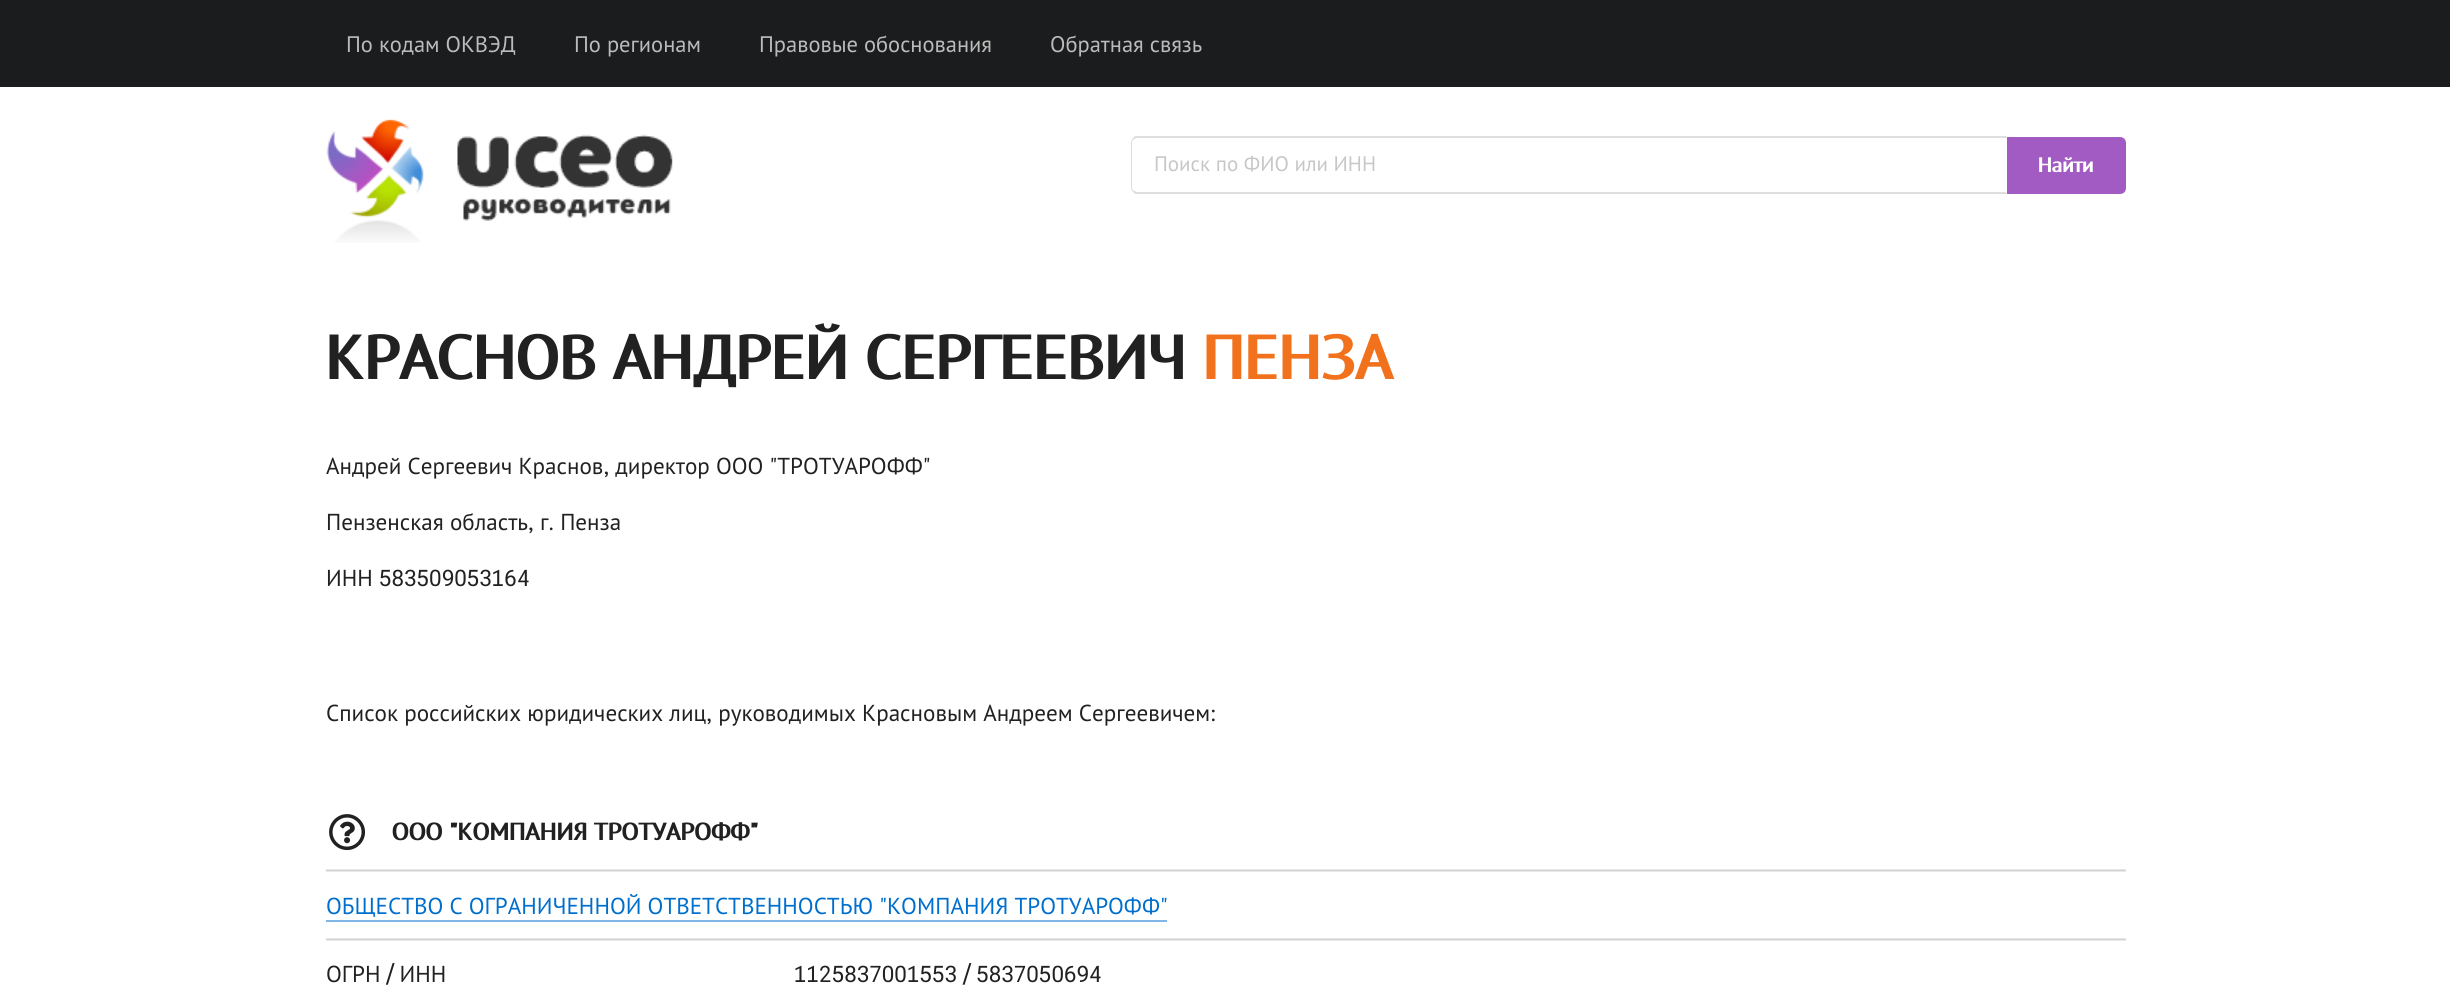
#include <cairo/cairo.h>
#include <math.h>
#include <stddef.h>

static cairo_t *cr;

static void use_color(int r, int g, int b) {
  cairo_set_source_rgb(cr, r / 255.0, g / 255.0, b / 255.0);
}

static void text(double x, double y, const char *s, const char *family, double size, int italic, int bold, int r, int g, int b) {
  cairo_select_font_face(cr, family, italic ? CAIRO_FONT_SLANT_ITALIC : CAIRO_FONT_SLANT_NORMAL,
    bold ? CAIRO_FONT_WEIGHT_BOLD : CAIRO_FONT_WEIGHT_NORMAL);
  cairo_set_font_size(cr, size);
  use_color(r, g, b);
  cairo_move_to(cr, x, y);
  cairo_show_text(cr, s);
}

static void box(double x, double y, double w, double h, int r, int g, int b) {
  use_color(r, g, b);
  cairo_rectangle(cr, x, y, w, h);
  cairo_fill(cr);
}

static void picture(const char *path, double x, double y, double w, double h) {
  cairo_surface_t *image = cairo_image_surface_create_from_png(path);
  cairo_save(cr);
  cairo_set_source_surface(cr, image, x, y);
  cairo_rectangle(cr, x, y, w, h);
  cairo_fill(cr);
  cairo_restore(cr);
  cairo_surface_destroy(image);
}

static void draw(void) {
  use_color(255, 255, 255);
  cairo_paint(cr);
  box(326, 940, 1800, 1, 233, 233, 233);
  box(326, 871, 1800, 1, 233, 233, 233);
  box(0, 0, 2450, 87, 27, 28, 29);
  picture("img_01.png", 326, 119, 347, 124);
  use_color(222, 222, 222);
  cairo_new_path(cr);
  cairo_move_to(cr, 1137, 138);
  cairo_line_to(cr, 1134, 139);
  cairo_line_to(cr, 1133, 138);
  cairo_line_to(cr, 1135, 136);
  cairo_line_to(cr, 2007, 136);
  cairo_line_to(cr, 2006, 138);
  cairo_close_path(cr);
  cairo_fill(cr);
  cairo_new_path(cr);
  cairo_move_to(cr, 2007, 194);
  cairo_line_to(cr, 1135, 194);
  cairo_line_to(cr, 1133, 192);
  cairo_line_to(cr, 1134, 191);
  cairo_line_to(cr, 1137, 192);
  cairo_line_to(cr, 2006, 192);
  cairo_close_path(cr);
  cairo_fill(cr);
  cairo_set_source_rgba(cr, 0.133, 0.141, 0.149, 0.15);
  cairo_new_path(cr);
  cairo_move_to(cr, 1131, 142);
  cairo_line_to(cr, 1131, 188);
  cairo_curve_to(cr, 1131, 189, 1132, 191, 1133, 192);
  cairo_line_to(cr, 1134, 191);
  cairo_curve_to(cr, 1133, 190, 1132, 189, 1132, 188);
  cairo_line_to(cr, 1132, 142);
  cairo_curve_to(cr, 1132, 141, 1133, 140, 1134, 139);
  cairo_line_to(cr, 1133, 138);
  cairo_curve_to(cr, 1132, 139, 1131, 141, 1131, 142);
  cairo_close_path(cr);
  cairo_fill(cr);
  use_color(162, 91, 195);
  cairo_new_path(cr);
  cairo_move_to(cr, 2007, 137);
  cairo_line_to(cr, 2120, 137);
  cairo_curve_to(cr, 2123.5, 137, 2126, 139.5, 2126, 143);
  cairo_line_to(cr, 2126, 188);
  cairo_curve_to(cr, 2126, 191.5, 2123.5, 194, 2120, 194);
  cairo_line_to(cr, 2007, 194);
  cairo_close_path(cr);
  cairo_fill(cr);
  box(326, 869, 1800, 1, 230, 230, 230);
  box(326, 870, 1800, 1, 210, 211, 211);
  picture("img_02.png", 329, 814, 36, 37);
  box(326, 938, 1800, 1, 230, 230, 230);
  box(326, 939, 1800, 1, 210, 211, 211);
  box(326, 920, 841, 2, 128, 183, 230);
  text(346, 52, "По кодам ОКВЭД", "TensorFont", 22.5, 0, 0, 187, 187, 187);
  text(574, 52, "По регионам", "TensorFont", 22.5, 0, 0, 187, 187, 187);
  text(759, 52, "Правовые обоснования", "TensorFont", 22.5, 0, 0, 187, 187, 187);
  text(1050, 52, "Обратная связь", "TensorFont", 22.5, 0, 0, 187, 187, 187);
  text(1154, 171, "Поиск по ФИО или ИНН", "TensorFont", 21, 0, 0, 199, 199, 199);
  text(2038, 172, "Найти", "TensorFont", 21, 0, 1, 255, 255, 255);
  text(326, 379, "КРАСНОВ АНДРЕЙ СЕРГЕЕВИЧ", "TensorFont", 63.5, 0, 1, 33, 33, 33);
  text(1203, 379, "ПЕНЗА", "TensorFont", 63.5, 0, 1, 242, 113, 28);
  text(326, 474, "Андрей Сергеевич Краснов, директор ООО \"ТРОТУАРОФФ\"", "TensorFont", 23.1, 0, 0, 33, 33, 33);
  text(326, 530, "Пензенская область, г. Пенза", "TensorFont", 23.1, 0, 0, 33, 33, 33);
  text(326, 586, "ИНН 583509053164", "TensorFont", 23.1, 0, 0, 33, 33, 33);
  text(326, 721, "Список российских юридических лиц, руководимых Красновым Андреем Сергеевичем:", "TensorFont", 23.1, 0, 0, 33, 33, 33);
  text(392, 840, "ООО \"КОМПАНИЯ ТРОТУАРОФФ\"", "TensorFont", 24.75, 0, 1, 33, 33, 33);
  text(326, 914, "ОБЩЕСТВО С ОГРАНИЧЕННОЙ ОТВЕТСТВЕННОСТЬЮ \"КОМПАНИЯ ТРОТУАРОФФ\"", "TensorFont", 23.1, 0, 0, 0, 110, 204);
  text(326, 982, "ОГРН / ИНН", "TensorFont", 23.1, 0, 0, 33, 33, 33);
  text(794, 982, "1125837001553 / 5837050694", "TensorFont", 23.1, 0, 0, 33, 33, 33);
}

int main(void) {
  cairo_surface_t *surface = cairo_image_surface_create(CAIRO_FORMAT_RGB24, 2450, 1004);
  cr = cairo_create(surface);
  cairo_font_options_t *options = cairo_font_options_create();
  cairo_font_options_set_hint_metrics(options, CAIRO_HINT_METRICS_OFF);
  cairo_font_options_set_hint_style(options, CAIRO_HINT_STYLE_NONE);
  cairo_set_font_options(cr, options);
  cairo_set_miter_limit(cr, 4);
  draw();
  cairo_surface_write_to_png(surface, "out.png");
  cairo_font_options_destroy(options);
  cairo_destroy(cr);
  cairo_surface_destroy(surface);
  return 0;
}
